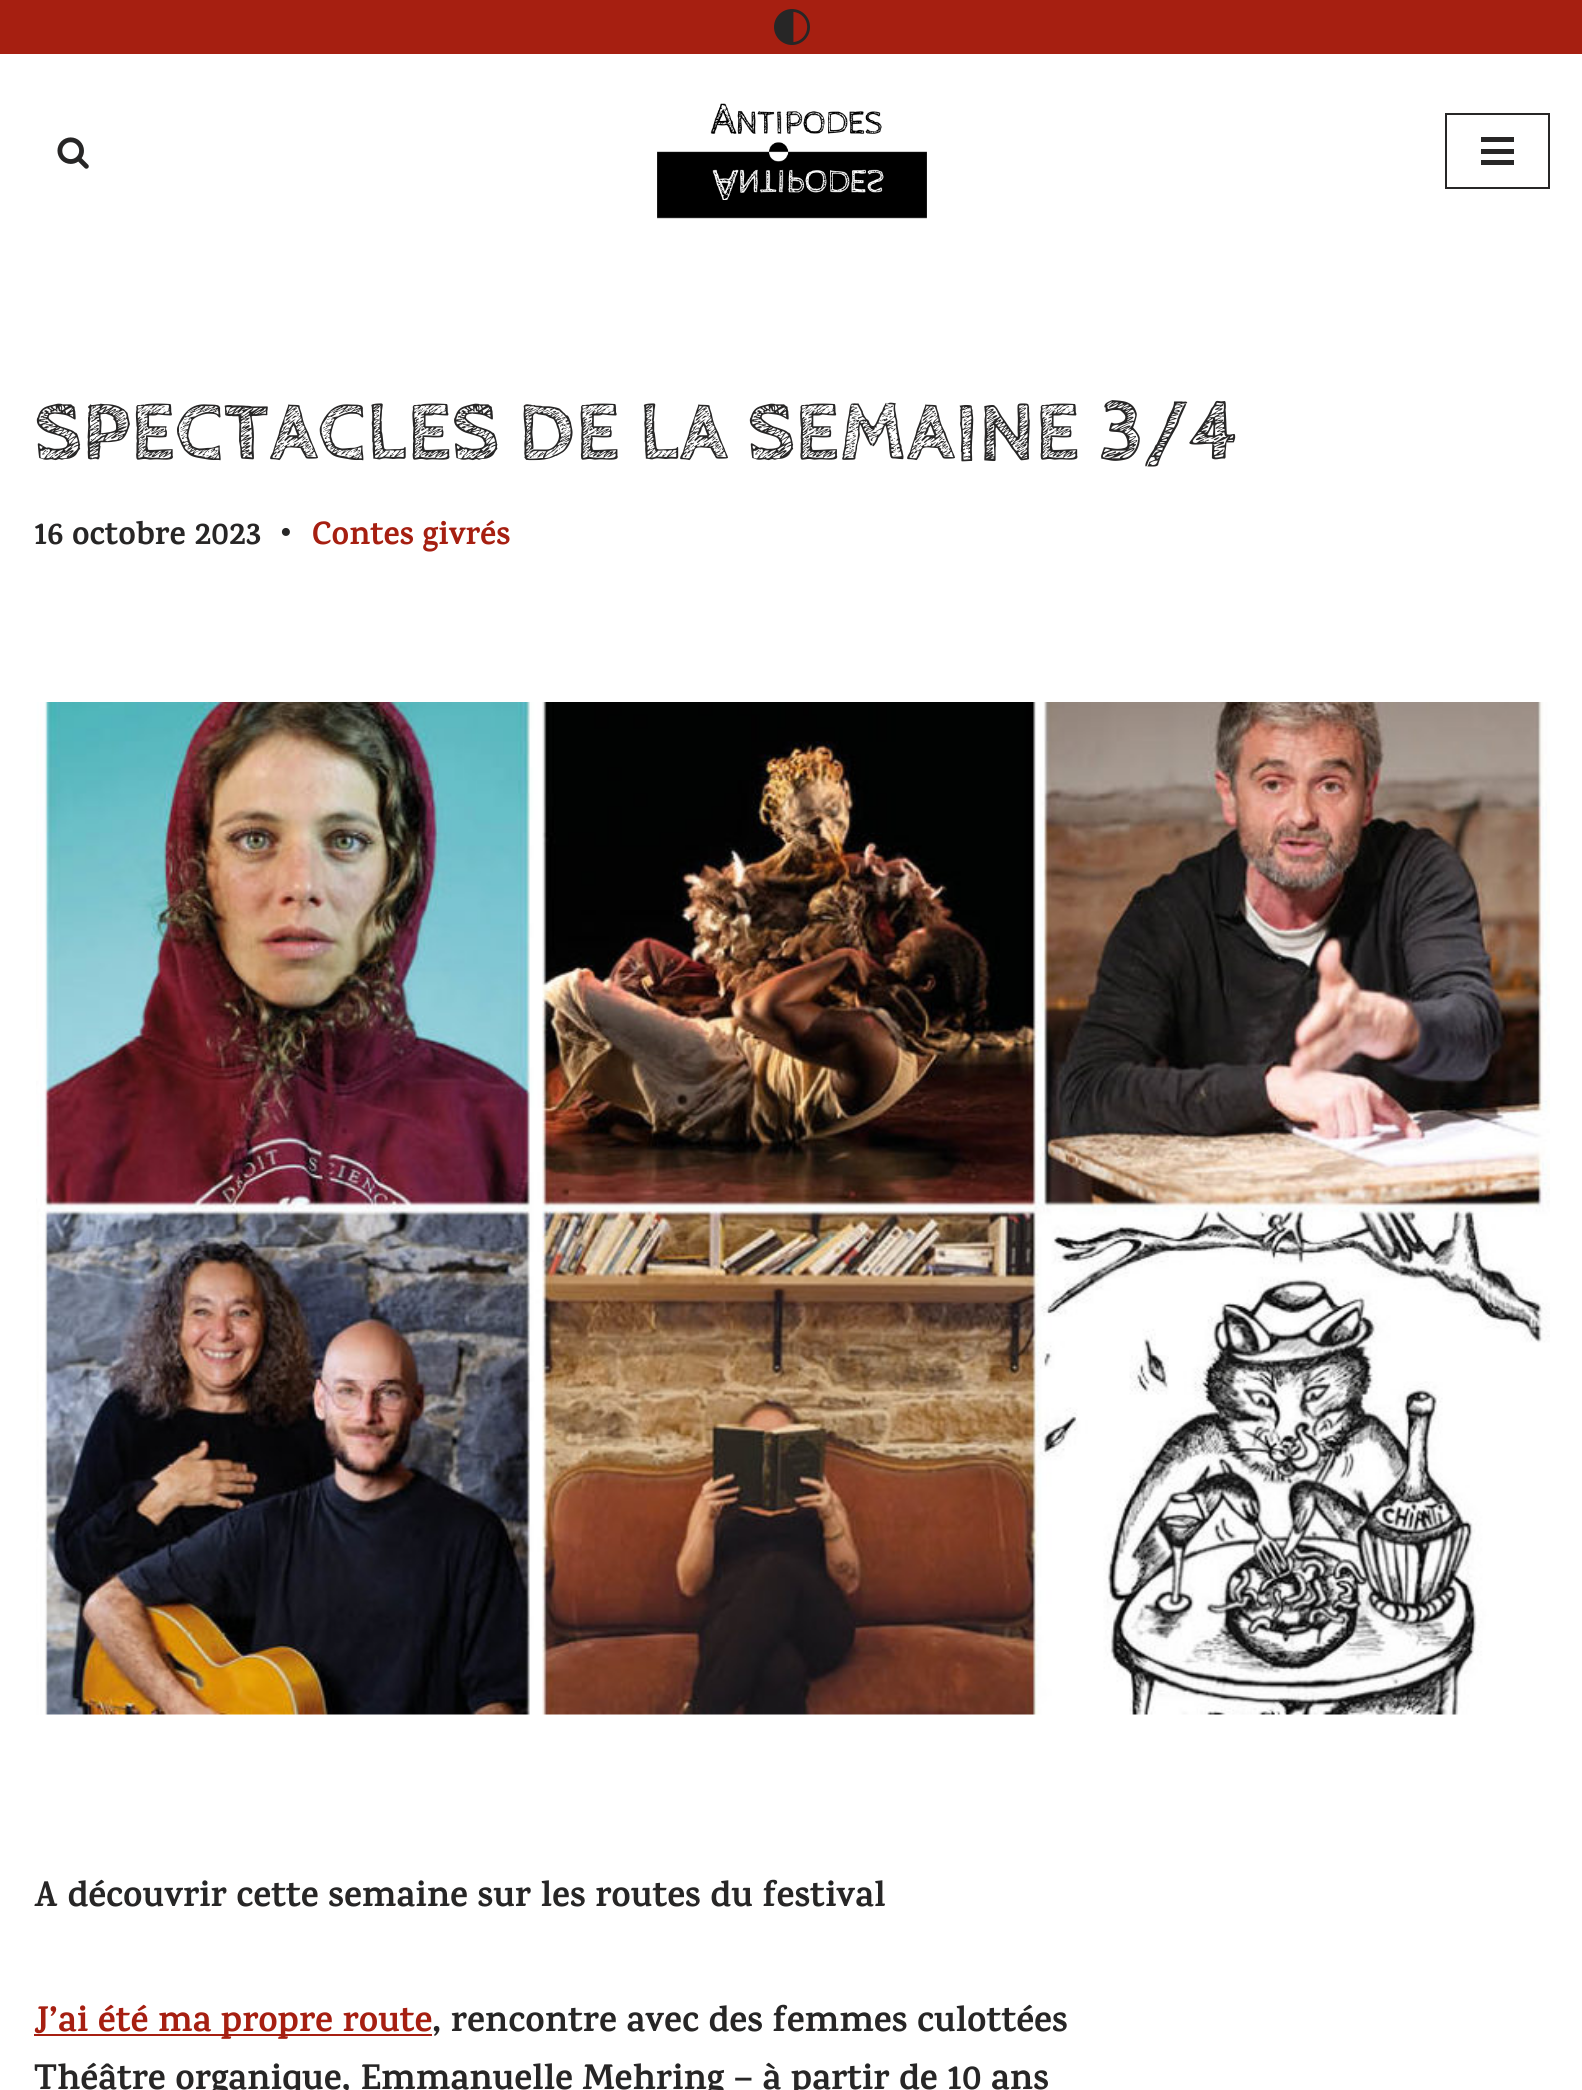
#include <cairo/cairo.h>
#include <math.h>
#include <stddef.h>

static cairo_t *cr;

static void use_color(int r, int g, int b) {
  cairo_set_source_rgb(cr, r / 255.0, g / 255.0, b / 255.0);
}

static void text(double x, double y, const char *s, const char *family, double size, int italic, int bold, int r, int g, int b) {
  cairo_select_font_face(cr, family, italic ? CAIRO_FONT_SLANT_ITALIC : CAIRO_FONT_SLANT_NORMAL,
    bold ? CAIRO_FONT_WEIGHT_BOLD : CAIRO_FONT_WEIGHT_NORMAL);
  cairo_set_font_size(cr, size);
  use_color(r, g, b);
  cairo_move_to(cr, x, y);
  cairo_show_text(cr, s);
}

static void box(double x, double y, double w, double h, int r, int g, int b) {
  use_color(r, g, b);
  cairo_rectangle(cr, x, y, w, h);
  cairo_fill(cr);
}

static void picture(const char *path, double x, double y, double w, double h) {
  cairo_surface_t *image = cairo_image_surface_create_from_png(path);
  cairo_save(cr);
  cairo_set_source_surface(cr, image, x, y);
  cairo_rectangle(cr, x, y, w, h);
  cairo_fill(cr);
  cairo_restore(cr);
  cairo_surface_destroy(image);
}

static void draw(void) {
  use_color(255, 255, 255);
  cairo_paint(cr);
  box(0, 0, 1582, 54, 166, 31, 17);
  picture("img_01.png", 774, 9, 36, 36);
  picture("img_02.png", 57, 137, 32, 32);
  picture("img_03.png", 657, 103, 270, 116);
  cairo_rectangle(cr, 1446, 114, 103, 74);
  use_color(39, 38, 38);
  cairo_stroke(cr);
  box(1481, 137, 33, 5, 39, 38, 38);
  box(1481, 149, 33, 5, 39, 38, 38);
  box(1481, 160, 33, 5, 39, 38, 38);
  picture("img_04.png", 36, 702, 1514, 1013);
  box(34, 2034, 398, 2, 166, 31, 17);
  text(34, 459, "SPECTACLES DE LA SEMAINE 3/4", "Cabin Sketch", 85.5, 0, 1, 39, 38, 38);
  text(34, 544, "16 octobre 2023", "Karma", 32.5, 0, 1, 39, 38, 38);
  text(278, 544, "•", "Karma", 32.5, 0, 1, 39, 38, 38);
  text(312, 544, "Contes givrés", "Karma", 32.5, 0, 1, 166, 31, 17);
  text(34, 1906, "A découvrir cette semaine sur les routes du festival", "Karma", 36, 0, 1, 39, 38, 38);
  text(34, 2031, "J’ai été ma propre route", "Karma", 36, 0, 1, 166, 31, 17);
  text(432, 2031, ", rencontre avec des femmes culottées", "Karma", 36, 0, 1, 39, 38, 38);
  text(34, 2089, "Théâtre organique, Emmanuelle Mehring – à partir de 10 ans", "Karma", 36, 0, 1, 39, 38, 38);
}

int main(void) {
  cairo_surface_t *surface = cairo_image_surface_create(CAIRO_FORMAT_RGB24, 1582, 2090);
  cr = cairo_create(surface);
  cairo_font_options_t *options = cairo_font_options_create();
  cairo_font_options_set_hint_metrics(options, CAIRO_HINT_METRICS_OFF);
  cairo_font_options_set_hint_style(options, CAIRO_HINT_STYLE_NONE);
  cairo_set_font_options(cr, options);
  cairo_set_miter_limit(cr, 4);
  draw();
  cairo_surface_write_to_png(surface, "out.png");
  cairo_font_options_destroy(options);
  cairo_destroy(cr);
  cairo_surface_destroy(surface);
  return 0;
}
